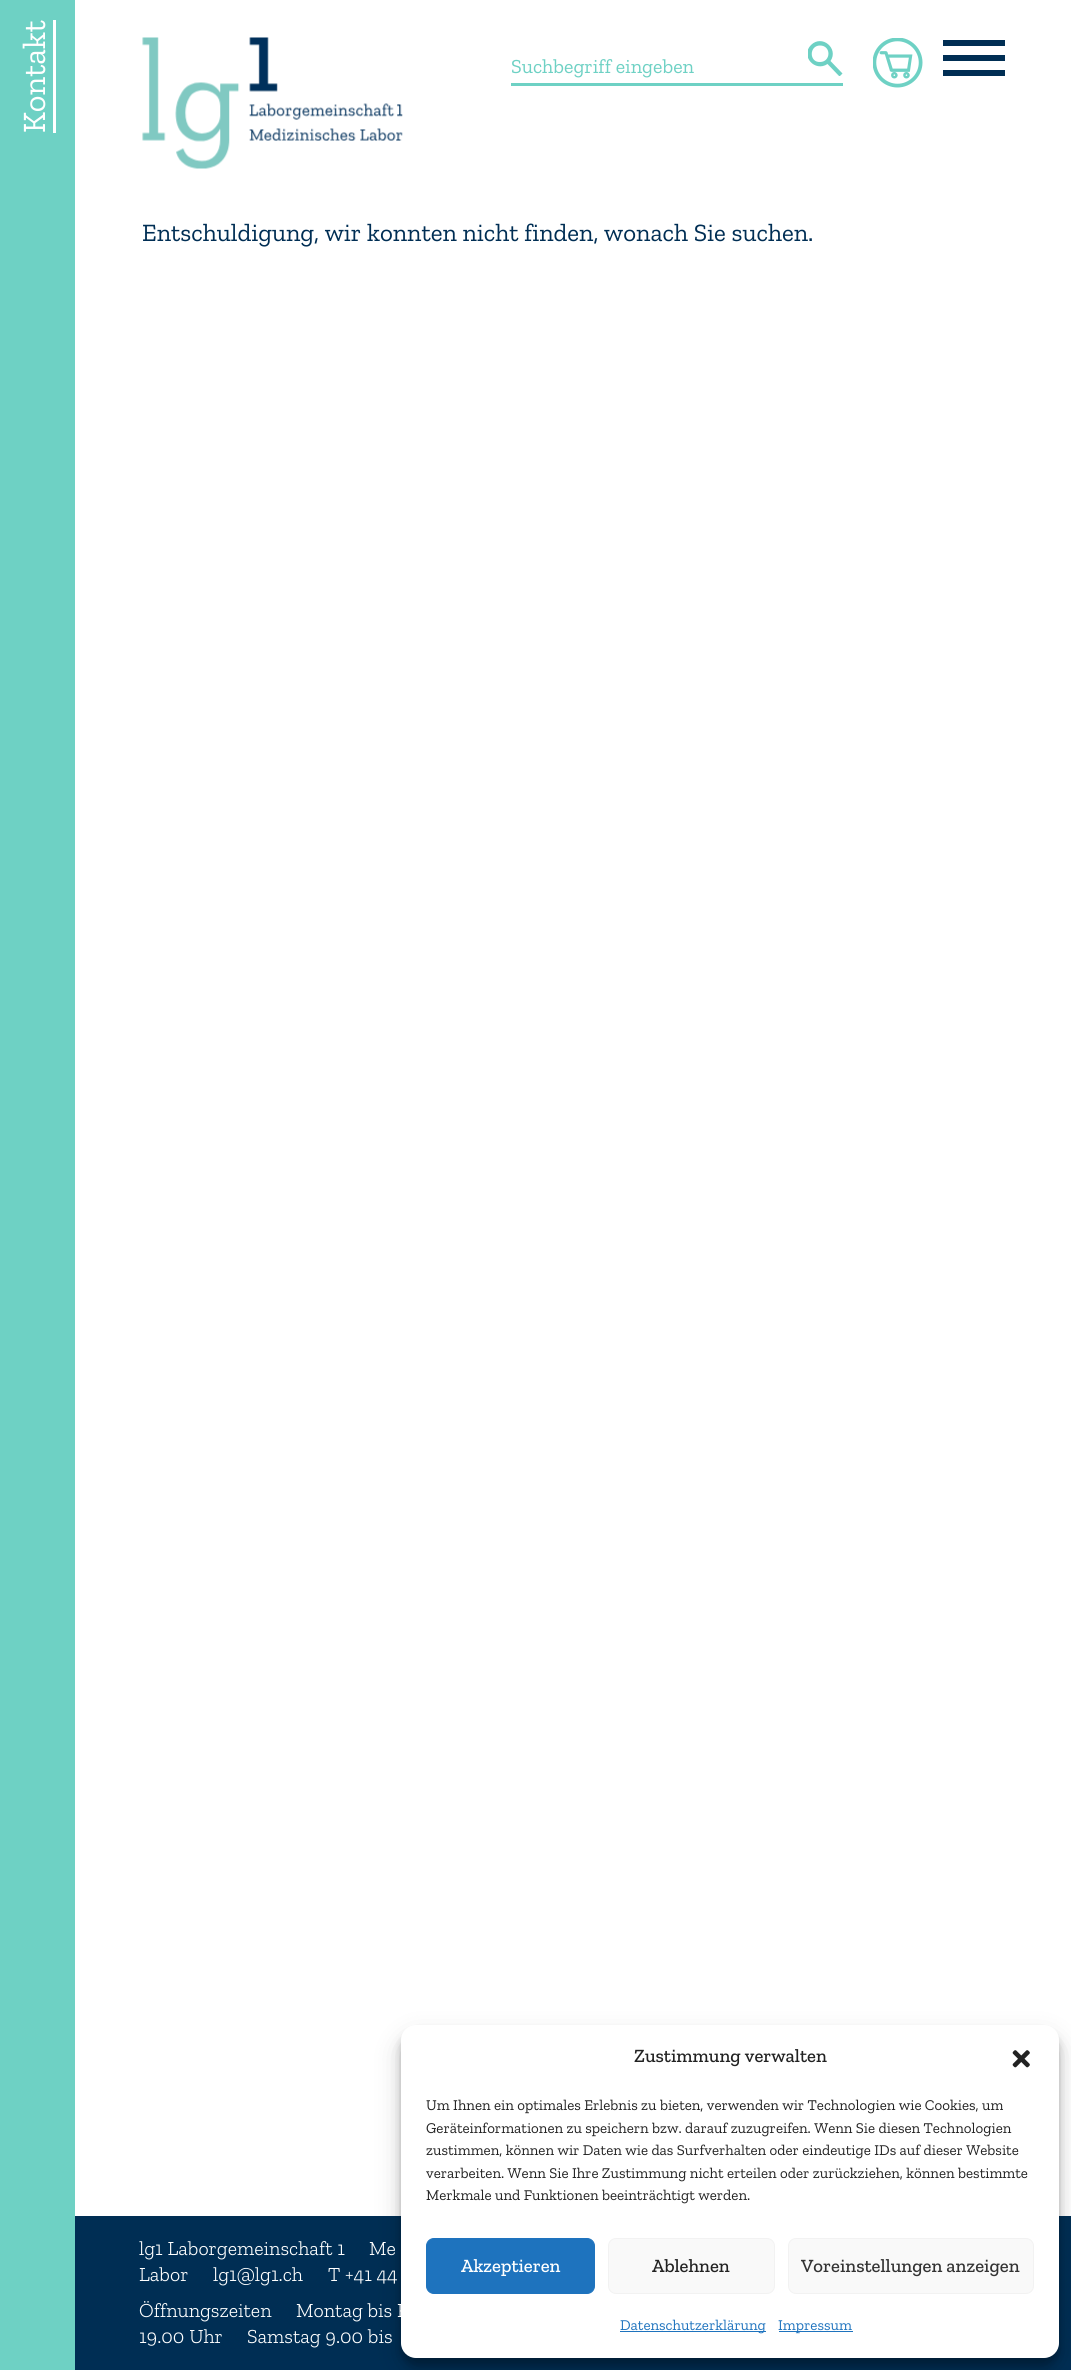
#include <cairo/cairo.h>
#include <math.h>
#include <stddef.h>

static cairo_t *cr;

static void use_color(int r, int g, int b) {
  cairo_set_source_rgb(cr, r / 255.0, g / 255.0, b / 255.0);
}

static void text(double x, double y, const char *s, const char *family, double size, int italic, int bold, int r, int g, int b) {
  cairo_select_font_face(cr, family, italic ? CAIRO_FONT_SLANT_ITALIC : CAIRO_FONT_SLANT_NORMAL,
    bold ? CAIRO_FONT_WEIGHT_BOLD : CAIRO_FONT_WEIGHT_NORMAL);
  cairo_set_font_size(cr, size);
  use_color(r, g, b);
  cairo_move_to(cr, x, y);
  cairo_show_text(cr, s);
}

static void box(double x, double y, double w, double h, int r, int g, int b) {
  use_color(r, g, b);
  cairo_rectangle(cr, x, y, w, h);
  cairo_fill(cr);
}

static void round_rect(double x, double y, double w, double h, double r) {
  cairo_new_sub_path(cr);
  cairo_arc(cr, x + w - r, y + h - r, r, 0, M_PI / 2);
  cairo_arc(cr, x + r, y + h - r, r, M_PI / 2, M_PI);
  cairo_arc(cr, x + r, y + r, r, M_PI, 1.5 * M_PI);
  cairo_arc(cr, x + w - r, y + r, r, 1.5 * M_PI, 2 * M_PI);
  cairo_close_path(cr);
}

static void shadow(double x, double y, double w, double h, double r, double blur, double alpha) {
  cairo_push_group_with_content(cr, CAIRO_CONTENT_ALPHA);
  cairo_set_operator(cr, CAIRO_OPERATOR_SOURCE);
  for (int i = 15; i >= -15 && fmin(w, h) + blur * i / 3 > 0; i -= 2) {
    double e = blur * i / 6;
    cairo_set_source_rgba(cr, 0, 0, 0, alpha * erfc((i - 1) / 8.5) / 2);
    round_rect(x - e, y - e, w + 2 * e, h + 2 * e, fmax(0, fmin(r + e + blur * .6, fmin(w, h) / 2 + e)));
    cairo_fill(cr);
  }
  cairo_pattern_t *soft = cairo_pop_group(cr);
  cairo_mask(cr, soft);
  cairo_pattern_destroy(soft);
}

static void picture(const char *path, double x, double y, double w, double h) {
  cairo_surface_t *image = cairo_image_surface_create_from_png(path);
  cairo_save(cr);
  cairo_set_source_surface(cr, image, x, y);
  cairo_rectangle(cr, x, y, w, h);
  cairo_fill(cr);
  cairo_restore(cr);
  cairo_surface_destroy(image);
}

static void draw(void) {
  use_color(255, 255, 255);
  cairo_paint(cr);
  box(0, 0, 75, 2370, 110, 209, 196);
  box(53, 20, 3, 113, 255, 255, 255);
  picture("img_01.png", 142, 37, 261, 132);
  box(511, 83, 332, 3, 110, 209, 196);
  cairo_save(cr);
  cairo_rectangle(cr, 808, 41, 35, 35);
  cairo_clip(cr);
  cairo_new_path(cr);
  cairo_move_to(cr, 820, 45.5);
  cairo_curve_to(cr, 831.5, 45.5, 831, 62, 820, 62);
  cairo_curve_to(cr, 809, 62.5, 809, 45.5, 820, 45.5);
  cairo_move_to(cr, 842.5, 73.5);
  cairo_line_to(cr, 830.5, 61);
  cairo_curve_to(cr, 839, 48.5, 822, 34, 811, 45);
  cairo_curve_to(cr, 800, 56, 815, 72.5, 827.5, 64);
  cairo_line_to(cr, 839.5, 76.5);
  cairo_close_path(cr);
  cairo_fill(cr);
  cairo_restore(cr);
  picture("img_02.png", 873, 38, 50, 50);
  box(943, 55, 62, 6, 0, 46, 84);
  box(943, 40, 62, 6, 0, 46, 84);
  box(943, 70, 62, 6, 0, 46, 84);
  box(75, 2216, 996, 154, 0, 46, 84);
  use_color(0, 0, 0);
  shadow(401, 2033, 658, 332, 15, 4, 0.23);
  shadow(401, 2038, 658, 332, 15, 12.5, 0.19);
  use_color(255, 255, 255);
  round_rect(401, 2025, 658, 333, 15);
  cairo_fill(cr);
  picture("img_03.png", 1012, 2050, 18, 18);
  use_color(30, 115, 190);
  round_rect(426.5, 2238.5, 168, 55, 7.5);
  cairo_fill_preserve(cr);
  cairo_set_line_width(cr, 1);
  cairo_stroke(cr);
  use_color(249, 249, 249);
  round_rect(608.5, 2238.5, 166, 55, 7.5);
  cairo_fill_preserve(cr);
  use_color(242, 242, 242);
  cairo_stroke(cr);
  use_color(249, 249, 249);
  round_rect(788.5, 2238.5, 245, 55, 7.5);
  cairo_fill_preserve(cr);
  use_color(242, 242, 242);
  cairo_stroke(cr);
  box(620, 2331, 146, 1, 30, 115, 190);
  box(779, 2331, 74, 1, 30, 115, 190);
  cairo_save(cr);
  cairo_translate(cr, 45, 133);
  cairo_rotate(cr, -90 * M_PI / 180);
  text(0, 0, "Kontakt", "Zilla Slab", 32.5, 0, 0, 255, 255, 255);
  cairo_restore(cr);
  text(511, 73, "Suchbegriff eingeben", "Zilla Slab", 20, 0, 0, 110, 209, 196);
  text(142, 241, "Entschuldigung, wir konnten nicht finden, wonach Sie suchen.", "Zilla Slab", 25, 0, 0, 0, 46, 84);
  text(139, 2255, "lg1 Laborgemeinschaft 1", "Zilla Slab Light", 20, 0, 0, 255, 255, 255);
  text(369, 2255, "Me", "Zilla Slab Light", 20, 0, 0, 255, 255, 255);
  text(139, 2281, "Labor", "Zilla Slab Light", 20, 0, 0, 255, 255, 255);
  text(213, 2281, "lg1@lg1.ch", "Zilla Slab Light", 20, 0, 0, 255, 255, 255);
  text(328, 2281, "T +41 44", "Zilla Slab Light", 20, 0, 0, 255, 255, 255);
  text(139, 2317, "Öffnungszeiten", "Zilla Slab Light", 20, 0, 0, 255, 255, 255);
  text(296, 2317, "Montag bis F", "Zilla Slab Light", 20, 0, 0, 255, 255, 255);
  text(139, 2343, "19.00 Uhr", "Zilla Slab Light", 20, 0, 0, 255, 255, 255);
  text(247, 2343, "Samstag 9.00 bis", "Zilla Slab Light", 20, 0, 0, 255, 255, 255);
  text(634, 2062, "Zustimmung verwalten", "Zilla Slab Medium", 18.75, 0, 0, 34, 34, 34);
  text(426, 2110, "Um Ihnen ein optimales Erlebnis zu bieten, verwenden wir Technologien wie Cookies, um", "Zilla Slab", 15, 0, 0, 34, 34, 34);
  text(426, 2133, "Geräteinformationen zu speichern bzw. darauf zuzugreifen. Wenn Sie diesen Technologien", "Zilla Slab", 15, 0, 0, 34, 34, 34);
  text(426, 2155, "zustimmen, können wir Daten wie das Surfverhalten oder eindeutige IDs auf dieser Website", "Zilla Slab", 15, 0, 0, 34, 34, 34);
  text(426, 2178, "verarbeiten. Wenn Sie Ihre Zustimmung nicht erteilen oder zurückziehen, können bestimmte", "Zilla Slab", 15, 0, 0, 34, 34, 34);
  text(426, 2200, "Merkmale und Funktionen beeinträchtigt werden.", "Zilla Slab", 15, 0, 0, 34, 34, 34);
  text(461, 2272, "Akzeptieren", "Zilla Slab Medium", 18.75, 0, 0, 255, 255, 255);
  text(652, 2272, "Ablehnen", "Zilla Slab Medium", 18.75, 0, 0, 34, 34, 34);
  text(801, 2272, "Voreinstellungen anzeigen", "Zilla Slab Medium", 18.75, 0, 0, 51, 51, 51);
  text(620, 2330, "Datenschutzerklärung", "Zilla Slab", 15, 0, 0, 30, 115, 190);
  text(778, 2330, "Impressum", "Zilla Slab", 15, 0, 0, 30, 115, 190);
}

int main(void) {
  cairo_surface_t *surface = cairo_image_surface_create(CAIRO_FORMAT_RGB24, 1071, 2370);
  cr = cairo_create(surface);
  cairo_font_options_t *options = cairo_font_options_create();
  cairo_font_options_set_hint_metrics(options, CAIRO_HINT_METRICS_OFF);
  cairo_font_options_set_hint_style(options, CAIRO_HINT_STYLE_NONE);
  cairo_set_font_options(cr, options);
  cairo_set_miter_limit(cr, 4);
  draw();
  cairo_surface_write_to_png(surface, "out.png");
  cairo_font_options_destroy(options);
  cairo_destroy(cr);
  cairo_surface_destroy(surface);
  return 0;
}
